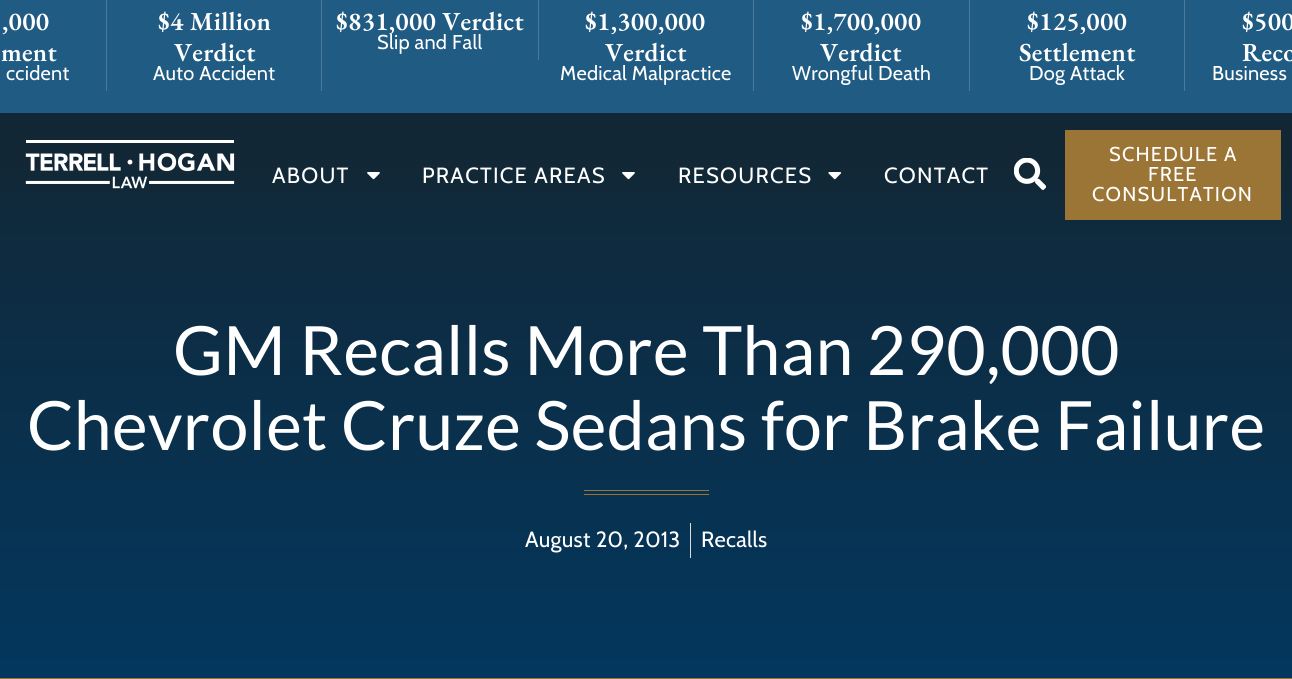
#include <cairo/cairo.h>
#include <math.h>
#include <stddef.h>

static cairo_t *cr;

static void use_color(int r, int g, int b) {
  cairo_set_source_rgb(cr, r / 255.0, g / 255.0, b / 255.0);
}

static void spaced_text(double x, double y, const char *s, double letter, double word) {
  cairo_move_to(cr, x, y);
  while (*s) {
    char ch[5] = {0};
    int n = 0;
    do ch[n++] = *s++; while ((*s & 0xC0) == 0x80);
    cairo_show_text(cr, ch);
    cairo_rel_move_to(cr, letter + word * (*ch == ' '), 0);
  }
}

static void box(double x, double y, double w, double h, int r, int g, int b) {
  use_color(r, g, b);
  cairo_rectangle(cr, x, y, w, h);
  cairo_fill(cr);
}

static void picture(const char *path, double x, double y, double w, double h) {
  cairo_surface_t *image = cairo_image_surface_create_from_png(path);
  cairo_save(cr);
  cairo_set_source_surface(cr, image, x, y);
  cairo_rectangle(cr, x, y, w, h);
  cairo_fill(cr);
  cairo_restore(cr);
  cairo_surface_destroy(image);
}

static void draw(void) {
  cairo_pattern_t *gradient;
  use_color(32, 91, 131);
  cairo_paint(cr);
  box(106, 0, 1, 91, 74, 122, 155);
  box(321, 0, 1, 91, 74, 122, 155);
  box(538, 0, 1, 60, 74, 122, 155);
  box(753, 0, 1, 91, 74, 122, 155);
  box(969, 0, 1, 91, 74, 122, 155);
  box(1184, 0, 1, 91, 74, 122, 155);
  gradient = cairo_pattern_create_linear(646, 112, 646, 678);
  cairo_pattern_add_color_stop_rgba(gradient, 0, 0.071, 0.153, 0.208, 1);
  cairo_pattern_add_color_stop_rgba(gradient, 1, 0.012, 0.216, 0.369, 1);
  cairo_set_source(cr, gradient);
  cairo_pattern_destroy(gradient);
  cairo_rectangle(cr, 0, 125, 1292, 553);
  cairo_fill(cr);
  gradient = cairo_pattern_create_linear(646, 112, 646, 238);
  cairo_pattern_add_color_stop_rgba(gradient, 0.1, 0.071, 0.153, 0.208, 1);
  cairo_pattern_add_color_stop_rgba(gradient, 1, 0.071, 0.153, 0.208, 0);
  cairo_set_source(cr, gradient);
  cairo_pattern_destroy(gradient);
  cairo_rectangle(cr, 0, 113, 1292, 82);
  cairo_fill(cr);
  picture("img_01.png", 25, 140, 210, 49);
  picture("img_02.png", 367, 172, 13, 8);
  picture("img_02.png", 622, 172, 13, 8);
  picture("img_03.png", 828, 172, 14, 8);
  picture("img_04.png", 1014, 158, 32, 32);
  box(1065, 130, 216, 90, 155, 117, 53);
  box(0, 678, 1292, 1, 155, 117, 53);
  box(584, 490, 125, 1, 155, 117, 53);
  box(584, 494, 125, 1, 155, 117, 53);
  box(690, 523, 1, 35, 221, 221, 221);
  cairo_select_font_face(cr, "EB Garamond SemiBold", CAIRO_FONT_SLANT_NORMAL, CAIRO_FONT_WEIGHT_NORMAL);
  cairo_set_font_size(cr, 26);
  use_color(255, 255, 255);
  spaced_text(2, 30, ",000", 0.25, 0);
  spaced_text(1, 61, "ment", 0.25, 0);
  cairo_select_font_face(cr, "Cabin", CAIRO_FONT_SLANT_NORMAL, CAIRO_FONT_WEIGHT_NORMAL);
  cairo_set_font_size(cr, 20);
  spaced_text(6, 80, "ccident", 0.25, 0);
  cairo_select_font_face(cr, "EB Garamond SemiBold", CAIRO_FONT_SLANT_NORMAL, CAIRO_FONT_WEIGHT_NORMAL);
  cairo_set_font_size(cr, 26);
  spaced_text(158, 30, "$4 Million", 0.25, 0);
  spaced_text(174, 61, "Verdict", 0.25, 0);
  cairo_select_font_face(cr, "Cabin", CAIRO_FONT_SLANT_NORMAL, CAIRO_FONT_WEIGHT_NORMAL);
  cairo_set_font_size(cr, 20);
  spaced_text(153, 80, "Auto Accident", 0.25, 0);
  cairo_select_font_face(cr, "EB Garamond SemiBold", CAIRO_FONT_SLANT_NORMAL, CAIRO_FONT_WEIGHT_NORMAL);
  cairo_set_font_size(cr, 26);
  spaced_text(336, 30, "$831,000 Verdict", 0.25, 0);
  cairo_select_font_face(cr, "Cabin", CAIRO_FONT_SLANT_NORMAL, CAIRO_FONT_WEIGHT_NORMAL);
  cairo_set_font_size(cr, 20);
  spaced_text(377, 49, "Slip and Fall", 0.25, 0);
  cairo_select_font_face(cr, "EB Garamond SemiBold", CAIRO_FONT_SLANT_NORMAL, CAIRO_FONT_WEIGHT_NORMAL);
  cairo_set_font_size(cr, 26);
  spaced_text(585, 30, "$1,300,000", 0.25, 0);
  spaced_text(605, 61, "Verdict", 0.25, 0);
  cairo_select_font_face(cr, "Cabin", CAIRO_FONT_SLANT_NORMAL, CAIRO_FONT_WEIGHT_NORMAL);
  cairo_set_font_size(cr, 20);
  spaced_text(560, 80, "Medical Malpractice", 0.25, 0);
  cairo_select_font_face(cr, "EB Garamond SemiBold", CAIRO_FONT_SLANT_NORMAL, CAIRO_FONT_WEIGHT_NORMAL);
  cairo_set_font_size(cr, 26);
  spaced_text(801, 30, "$1,700,000", 0.25, 0);
  spaced_text(820, 61, "Verdict", 0.25, 0);
  cairo_select_font_face(cr, "Cabin", CAIRO_FONT_SLANT_NORMAL, CAIRO_FONT_WEIGHT_NORMAL);
  cairo_set_font_size(cr, 20);
  spaced_text(792, 80, "Wrongful Death", 0.25, 0);
  cairo_select_font_face(cr, "EB Garamond SemiBold", CAIRO_FONT_SLANT_NORMAL, CAIRO_FONT_WEIGHT_NORMAL);
  cairo_set_font_size(cr, 26);
  spaced_text(1027, 30, "$125,000", 0.25, 0);
  spaced_text(1019, 61, "Settlement", 0.25, 0);
  cairo_select_font_face(cr, "Cabin", CAIRO_FONT_SLANT_NORMAL, CAIRO_FONT_WEIGHT_NORMAL);
  cairo_set_font_size(cr, 20);
  spaced_text(1029, 80, "Dog Attack", 0.25, 0);
  cairo_select_font_face(cr, "EB Garamond SemiBold", CAIRO_FONT_SLANT_NORMAL, CAIRO_FONT_WEIGHT_NORMAL);
  cairo_set_font_size(cr, 26);
  spaced_text(1242, 30, "$500", 0.25, 0);
  spaced_text(1242, 61, "Reco", 0.25, 0);
  cairo_select_font_face(cr, "Cabin", CAIRO_FONT_SLANT_NORMAL, CAIRO_FONT_WEIGHT_NORMAL);
  cairo_set_font_size(cr, 20);
  spaced_text(1212, 80, "Business", 0.25, 0);
  cairo_set_font_size(cr, 22);
  spaced_text(272, 183, "ABOUT", 1.25, 0);
  spaced_text(422, 183, "PRACTICE AREAS", 1.25, 0);
  spaced_text(678, 183, "RESOURCES", 1.25, 0);
  spaced_text(884, 183, "CONTACT", 1.25, 0);
  cairo_set_font_size(cr, 20);
  spaced_text(1109, 161, "SCHEDULE A", 1.25, 0);
  spaced_text(1148, 181, "FREE", 1.25, 0);
  spaced_text(1092, 201, "CONSULTATION", 1.25, 0);
  cairo_select_font_face(cr, "Lato", CAIRO_FONT_SLANT_NORMAL, CAIRO_FONT_WEIGHT_NORMAL);
  cairo_set_font_size(cr, 68);
  spaced_text(173, 375, "GM Recalls More Than 290,000", 0.25, 0);
  spaced_text(27, 450, "Chevrolet Cruze Sedans for Brake Failure", 0.25, 0);
  cairo_select_font_face(cr, "Cabin", CAIRO_FONT_SLANT_NORMAL, CAIRO_FONT_WEIGHT_NORMAL);
  cairo_set_font_size(cr, 22);
  spaced_text(525, 547, "August 20, 2013", 0.25, 0);
  spaced_text(701, 547, "Recalls", 0.25, 0);
}

int main(void) {
  cairo_surface_t *surface = cairo_image_surface_create(CAIRO_FORMAT_RGB24, 1292, 679);
  cr = cairo_create(surface);
  cairo_font_options_t *options = cairo_font_options_create();
  cairo_font_options_set_hint_metrics(options, CAIRO_HINT_METRICS_OFF);
  cairo_font_options_set_hint_style(options, CAIRO_HINT_STYLE_NONE);
  cairo_set_font_options(cr, options);
  cairo_set_miter_limit(cr, 4);
  draw();
  cairo_surface_write_to_png(surface, "out.png");
  cairo_font_options_destroy(options);
  cairo_destroy(cr);
  cairo_surface_destroy(surface);
  return 0;
}
